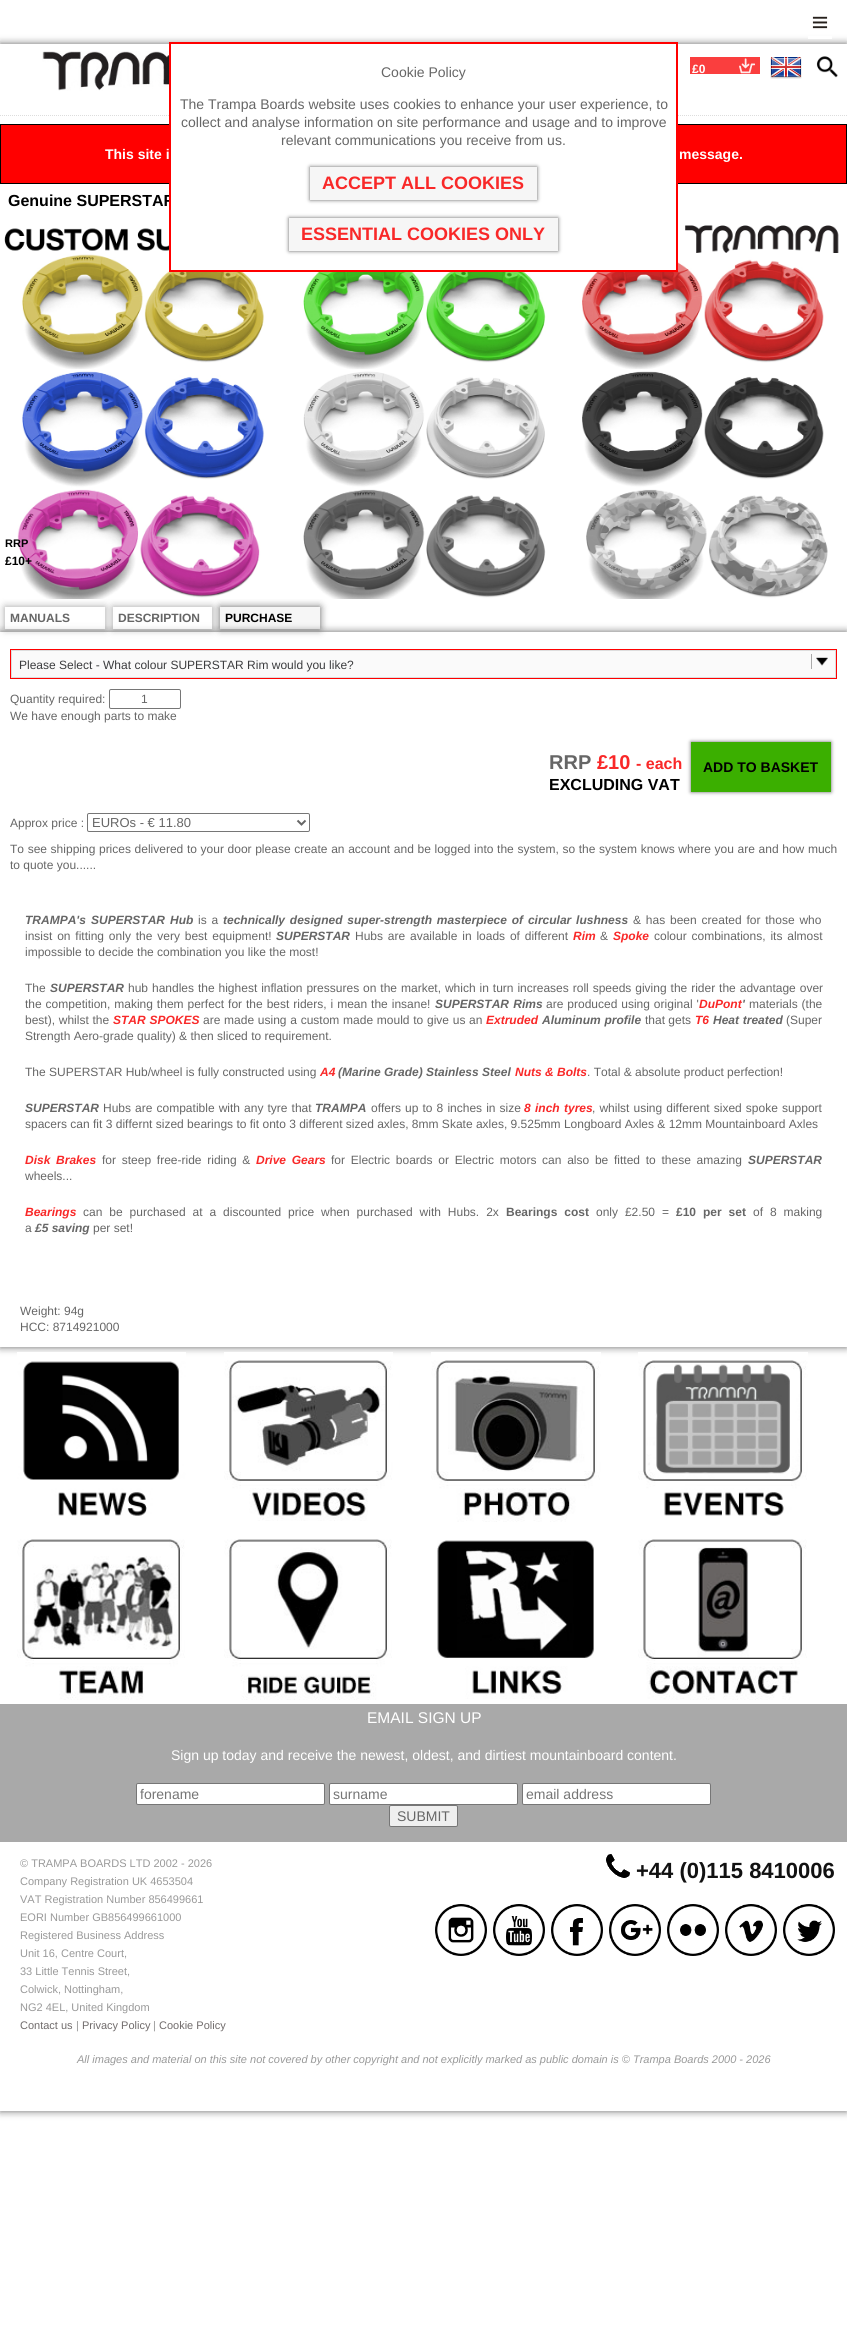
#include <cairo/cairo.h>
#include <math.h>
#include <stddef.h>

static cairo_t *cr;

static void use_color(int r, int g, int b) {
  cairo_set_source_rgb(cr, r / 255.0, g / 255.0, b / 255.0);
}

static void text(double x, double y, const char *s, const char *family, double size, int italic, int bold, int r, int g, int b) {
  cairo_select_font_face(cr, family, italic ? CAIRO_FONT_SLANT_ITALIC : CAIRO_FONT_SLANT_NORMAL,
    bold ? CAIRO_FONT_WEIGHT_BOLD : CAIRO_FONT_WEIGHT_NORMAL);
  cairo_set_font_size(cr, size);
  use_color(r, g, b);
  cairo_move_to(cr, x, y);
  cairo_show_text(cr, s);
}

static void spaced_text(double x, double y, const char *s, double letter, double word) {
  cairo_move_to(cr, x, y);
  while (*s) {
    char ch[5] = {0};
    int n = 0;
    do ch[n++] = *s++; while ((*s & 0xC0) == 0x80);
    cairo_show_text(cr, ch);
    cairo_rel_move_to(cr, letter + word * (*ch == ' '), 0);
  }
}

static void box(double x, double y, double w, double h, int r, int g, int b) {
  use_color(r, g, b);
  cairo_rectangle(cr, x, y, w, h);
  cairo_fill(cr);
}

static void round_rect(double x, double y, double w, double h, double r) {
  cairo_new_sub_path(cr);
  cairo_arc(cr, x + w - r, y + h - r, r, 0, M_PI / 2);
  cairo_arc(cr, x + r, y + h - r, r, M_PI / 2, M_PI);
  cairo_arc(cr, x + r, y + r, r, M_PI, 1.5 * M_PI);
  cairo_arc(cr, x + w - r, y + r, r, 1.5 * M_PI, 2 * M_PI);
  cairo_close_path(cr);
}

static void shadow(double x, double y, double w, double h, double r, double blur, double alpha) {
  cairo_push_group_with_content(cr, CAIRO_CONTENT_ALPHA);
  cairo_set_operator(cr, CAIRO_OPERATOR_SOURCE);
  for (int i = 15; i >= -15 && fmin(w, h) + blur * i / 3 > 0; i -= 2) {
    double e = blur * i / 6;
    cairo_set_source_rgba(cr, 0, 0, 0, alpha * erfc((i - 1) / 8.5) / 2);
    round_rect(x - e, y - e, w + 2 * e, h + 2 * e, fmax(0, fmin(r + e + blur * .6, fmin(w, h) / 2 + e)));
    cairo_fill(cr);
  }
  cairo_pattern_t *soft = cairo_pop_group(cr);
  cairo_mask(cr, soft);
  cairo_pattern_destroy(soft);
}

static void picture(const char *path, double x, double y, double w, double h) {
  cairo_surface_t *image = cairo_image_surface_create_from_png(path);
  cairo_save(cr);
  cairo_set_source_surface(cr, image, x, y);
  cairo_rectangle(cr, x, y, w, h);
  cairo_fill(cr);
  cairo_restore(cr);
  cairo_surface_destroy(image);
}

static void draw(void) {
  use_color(255, 255, 255);
  cairo_paint(cr);
  cairo_save(cr);
  cairo_set_fill_rule(cr, CAIRO_FILL_RULE_EVEN_ODD);
  cairo_new_path(cr);
  cairo_move_to(cr, 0, 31);
  cairo_line_to(cr, 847, 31);
  cairo_line_to(cr, 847, 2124);
  cairo_line_to(cr, 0, 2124);
  cairo_close_path(cr);
  cairo_move_to(cr, 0, 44);
  cairo_line_to(cr, 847, 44);
  cairo_line_to(cr, 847, 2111);
  cairo_line_to(cr, 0, 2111);
  cairo_close_path(cr);
  cairo_clip(cr);
  use_color(102, 102, 102);
  shadow(0, 44, 847, 2067, 0, 4, 1);
  cairo_restore(cr);
  picture("img_01.png", 42, 51, 127, 40);
  box(808, 36, 24, 3, 255, 255, 255);
  picture("img_02.png", 812, 16, 16, 13);
  box(690, 57, 70, 17, 250, 62, 62);
  picture("img_03.png", 739, 58, 16, 16);
  picture("img_04.png", 770, 57, 32, 22);
  picture("img_05.png", 816, 56, 22, 22);
  cairo_new_path(cr);
  cairo_move_to(cr, 0, 115.5);
  cairo_line_to(cr, 847, 115.5);
  use_color(221, 221, 221);
  cairo_set_line_width(cr, 1);
  cairo_set_dash(cr, (double[]){1, 1}, 2, 0);
  cairo_stroke(cr);
  use_color(255, 0, 0);
  cairo_rectangle(cr, 0.5, 124.5, 846, 59);
  cairo_fill_preserve(cr);
  use_color(0, 0, 0);
  cairo_set_dash(cr, NULL, 0, 0);
  cairo_stroke(cr);
  cairo_save(cr);
  cairo_set_fill_rule(cr, CAIRO_FILL_RULE_EVEN_ODD);
  cairo_new_path(cr);
  cairo_move_to(cr, 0, 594);
  cairo_line_to(cr, 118, 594);
  cairo_line_to(cr, 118, 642);
  cairo_line_to(cr, 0, 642);
  cairo_close_path(cr);
  cairo_move_to(cr, 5, 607);
  cairo_line_to(cr, 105, 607);
  cairo_line_to(cr, 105, 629);
  cairo_line_to(cr, 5, 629);
  cairo_close_path(cr);
  cairo_clip(cr);
  use_color(102, 102, 102);
  shadow(5, 607, 100, 22, 0, 4, 0.6);
  cairo_restore(cr);
  use_color(102, 102, 102);
  shadow(220, 607, 100, 22, 0, 4, 1);
  box(220, 607, 100, 22, 246, 246, 246);
  cairo_save(cr);
  cairo_set_fill_rule(cr, CAIRO_FILL_RULE_EVEN_ODD);
  cairo_new_path(cr);
  cairo_move_to(cr, 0, 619);
  cairo_line_to(cr, 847, 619);
  cairo_line_to(cr, 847, 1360);
  cairo_line_to(cr, 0, 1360);
  cairo_close_path(cr);
  cairo_move_to(cr, 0, 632);
  cairo_line_to(cr, 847, 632);
  cairo_line_to(cr, 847, 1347);
  cairo_line_to(cr, 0, 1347);
  cairo_close_path(cr);
  cairo_clip(cr);
  use_color(102, 102, 102);
  shadow(0, 632, 847, 715, 0, 4, 1);
  cairo_restore(cr);
  cairo_set_source_rgba(cr, 1, 1, 1, 0.6);
  cairo_rectangle(cr, 5, 624, 100, 5);
  cairo_fill(cr);
  cairo_save(cr);
  cairo_set_fill_rule(cr, CAIRO_FILL_RULE_EVEN_ODD);
  cairo_new_path(cr);
  cairo_move_to(cr, 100, 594);
  cairo_line_to(cr, 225, 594);
  cairo_line_to(cr, 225, 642);
  cairo_line_to(cr, 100, 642);
  cairo_close_path(cr);
  cairo_move_to(cr, 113, 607);
  cairo_line_to(cr, 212, 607);
  cairo_line_to(cr, 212, 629);
  cairo_line_to(cr, 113, 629);
  cairo_close_path(cr);
  cairo_clip(cr);
  use_color(102, 102, 102);
  shadow(113, 607, 99, 22, 0, 4, 0.6);
  cairo_restore(cr);
  picture("img_06.png", 4, 225, 835, 374);
  cairo_rectangle(cr, 113, 623, 99, 6);
  cairo_fill(cr);
  cairo_rectangle(cr, 10.5, 649.5, 826, 29);
  use_color(255, 0, 0);
  cairo_stroke(cr);
  use_color(250, 250, 250);
  cairo_rectangle(cr, 11.5, 650.5, 824, 27);
  cairo_fill_preserve(cr);
  use_color(221, 221, 221);
  cairo_stroke(cr);
  box(811, 654, 1, 15, 170, 170, 170);
  picture("img_07.png", 816, 657, 12, 9);
  round_rect(109.5, 689.5, 71, 19, 1.5);
  use_color(118, 118, 118);
  cairo_stroke(cr);
  use_color(102, 102, 102);
  shadow(691, 742, 140, 50, 0, 2, 1);
  box(691, 742, 140, 50, 59, 175, 0);
  round_rect(87.5, 813.5, 222, 18, 1.5);
  use_color(118, 118, 118);
  cairo_stroke(cr);
  cairo_new_path(cr);
  cairo_move_to(cr, 297.5, 820.5);
  cairo_line_to(cr, 301.5, 824.5);
  cairo_line_to(cr, 305.5, 820.5);
  use_color(102, 102, 102);
  cairo_set_line_width(cr, 2);
  cairo_stroke(cr);
  picture("img_08.png", 17, 1352, 169, 164);
  picture("img_09.png", 224, 1352, 169, 169);
  picture("img_10.png", 431, 1352, 170, 170);
  picture("img_11.png", 638, 1352, 170, 164);
  picture("img_12.png", 17, 1539, 168, 161);
  picture("img_13.png", 224, 1539, 168, 161);
  picture("img_14.png", 437, 1540, 157, 159);
  picture("img_15.png", 638, 1539, 169, 161);
  box(0, 1704, 847, 138, 169, 169, 169);
  use_color(255, 255, 255);
  round_rect(136.5, 1783.5, 188, 21, 1.5);
  cairo_fill_preserve(cr);
  use_color(118, 118, 118);
  cairo_set_line_width(cr, 1);
  cairo_stroke(cr);
  use_color(255, 255, 255);
  round_rect(329.5, 1783.5, 188, 21, 1.5);
  cairo_fill_preserve(cr);
  use_color(118, 118, 118);
  cairo_stroke(cr);
  use_color(255, 255, 255);
  round_rect(522.5, 1783.5, 188, 21, 1.5);
  cairo_fill_preserve(cr);
  use_color(118, 118, 118);
  cairo_stroke(cr);
  use_color(239, 239, 239);
  round_rect(389.5, 1805.5, 68, 21, 1.5);
  cairo_fill_preserve(cr);
  use_color(118, 118, 118);
  cairo_stroke(cr);
  picture("img_16.png", 606, 1854, 24, 24);
  picture("img_17.png", 435, 1904, 52, 52);
  picture("img_18.png", 493, 1904, 52, 52);
  picture("img_19.png", 551, 1904, 52, 52);
  picture("img_20.png", 609, 1904, 52, 52);
  picture("img_21.png", 667, 1904, 52, 52);
  picture("img_22.png", 725, 1904, 52, 52);
  picture("img_23.png", 783, 1904, 52, 52);
  text(692, 73, "£0", "Liberation Sans", 12, 0, 1, 255, 255, 255);
  text(105, 159, "This site i", "Liberation Sans", 14, 0, 1, 255, 255, 255);
  text(679, 159, "message.", "Liberation Sans", 14, 0, 1, 255, 255, 255);
  text(8, 206, "Genuine SUPERSTAR", "Liberation Sans", 16, 0, 1, 0, 0, 0);
  text(5, 547, "RRP", "Liberation Sans", 11, 0, 1, 0, 0, 0);
  text(5, 565, "£10+", "Liberation Sans", 12, 0, 1, 0, 0, 0);
  text(10, 622, "MANUALS", "Liberation Sans", 12, 0, 1, 102, 102, 102);
  text(118, 622, "DESCRIPTION", "Liberation Sans", 12, 0, 1, 102, 102, 102);
  text(225, 622, "PURCHASE", "Liberation Sans", 12, 0, 1, 0, 0, 0);
  text(19, 669, "Please Select - What colour SUPERSTAR Rim would you like?", "Liberation Sans", 12, 0, 0, 59, 60, 62);
  text(10, 703, "Quantity required:", "Liberation Sans", 12, 0, 0, 102, 102, 102);
  text(141, 703, "1", "Liberation Sans", 12, 0, 0, 102, 102, 102);
  text(10, 720, "We have enough parts to make", "Liberation Sans", 12, 0, 0, 102, 102, 102);
  text(703, 772, "ADD TO BASKET", "Liberation Sans", 14, 0, 1, 0, 0, 0);
  text(549, 769, "RRP", "Liberation Sans", 20, 0, 1, 102, 102, 102);
  text(597, 769, "£10", "Liberation Sans", 20, 0, 1, 249, 40, 40);
  text(636, 769, "- each", "Liberation Sans", 16, 0, 1, 249, 40, 40);
  text(549, 790, "EXCLUDING VAT", "Liberation Sans", 16, 0, 1, 0, 0, 0);
  text(10, 827, "Approx price :", "Liberation Sans", 12, 0, 0, 102, 102, 102);
  text(92, 827, "EUROs - € 11.80", "Liberation Sans", 13, 0, 0, 102, 102, 102);
  cairo_set_font_size(cr, 12);
  spaced_text(10, 853, "To see shipping prices delivered to your door please create an account and be logged into the system, so the system knows where you are and how much", 0, 0.3);
  text(10, 869, "to quote you......", "Liberation Sans", 12, 0, 0, 102, 102, 102);
  text(25, 924, "TRAMPA's", "Liberation Sans", 12, 1, 1, 102, 102, 102);
  text(91, 924, "SUPERSTAR", "Liberation Sans", 12, 1, 1, 102, 102, 102);
  text(170, 924, "Hub", "Liberation Sans", 12, 1, 1, 102, 102, 102);
  cairo_select_font_face(cr, "Liberation Sans", CAIRO_FONT_SLANT_NORMAL, CAIRO_FONT_WEIGHT_NORMAL);
  spaced_text(198, 924, "is a", 0, 1.5);
  cairo_select_font_face(cr, "Liberation Sans", CAIRO_FONT_SLANT_ITALIC, CAIRO_FONT_WEIGHT_BOLD);
  spaced_text(223, 924, "technically designed super-strength masterpiece of circular lushness", 0, 1.5);
  cairo_select_font_face(cr, "Liberation Sans", CAIRO_FONT_SLANT_NORMAL, CAIRO_FONT_WEIGHT_NORMAL);
  spaced_text(633, 924, "& has been created for those who", 0, 1.5);
  spaced_text(25, 940, "insist on fitting only the very best equipment!", 0, 1.5);
  text(276, 940, "SUPERSTAR", "Liberation Sans", 12, 1, 1, 102, 102, 102);
  cairo_select_font_face(cr, "Liberation Sans", CAIRO_FONT_SLANT_NORMAL, CAIRO_FONT_WEIGHT_NORMAL);
  spaced_text(355, 940, "Hubs are available in loads of different", 0, 1.5);
  text(573, 940, "Rim", "Liberation Sans", 12, 1, 1, 249, 40, 40);
  text(600, 940, "&", "Liberation Sans", 12, 0, 0, 102, 102, 102);
  text(613, 940, "Spoke", "Liberation Sans", 12, 1, 1, 249, 40, 40);
  cairo_select_font_face(cr, "Liberation Sans", CAIRO_FONT_SLANT_NORMAL, CAIRO_FONT_WEIGHT_NORMAL);
  use_color(102, 102, 102);
  spaced_text(654, 940, "colour combinations, its almost", 0, 1.5);
  text(25, 956, "impossible to decide the combination you like the most!", "Liberation Sans", 12, 0, 0, 102, 102, 102);
  text(25, 992, "The", "Liberation Sans", 12, 0, 0, 102, 102, 102);
  text(50, 992, "SUPERSTAR", "Liberation Sans", 12, 1, 1, 102, 102, 102);
  cairo_select_font_face(cr, "Liberation Sans", CAIRO_FONT_SLANT_NORMAL, CAIRO_FONT_WEIGHT_NORMAL);
  spaced_text(128, 992, "hub handles the highest inflation pressures on the market, which in turn increases roll speeds giving the rider the advantage over", 0, 0.6);
  spaced_text(25, 1008, "the competition, making them perfect for the best riders, i mean the insane!", 0, 0.6);
  cairo_select_font_face(cr, "Liberation Sans", CAIRO_FONT_SLANT_ITALIC, CAIRO_FONT_WEIGHT_BOLD);
  spaced_text(435, 1008, "SUPERSTAR Rims", 0, 1);
  cairo_select_font_face(cr, "Liberation Sans", CAIRO_FONT_SLANT_NORMAL, CAIRO_FONT_WEIGHT_NORMAL);
  spaced_text(546, 1008, "are produced using original '", 0, 0.6);
  text(699, 1008, "DuPont", "Liberation Sans", 12, 1, 1, 249, 40, 40);
  text(742, 1008, "'", "Liberation Sans", 12, 1, 1, 102, 102, 102);
  cairo_select_font_face(cr, "Liberation Sans", CAIRO_FONT_SLANT_NORMAL, CAIRO_FONT_WEIGHT_NORMAL);
  spaced_text(749, 1008, "materials (the", 0, 0.6);
  spaced_text(25, 1024, "best), whilst the", 0, 0.4);
  cairo_select_font_face(cr, "Liberation Sans", CAIRO_FONT_SLANT_ITALIC, CAIRO_FONT_WEIGHT_BOLD);
  use_color(249, 40, 40);
  spaced_text(113, 1024, "STAR SPOKES", 0, 0.4);
  cairo_select_font_face(cr, "Liberation Sans", CAIRO_FONT_SLANT_NORMAL, CAIRO_FONT_WEIGHT_NORMAL);
  use_color(102, 102, 102);
  spaced_text(203, 1024, "are made using a custom made mould to give us an", 0, 0.4);
  text(486, 1024, "Extruded", "Liberation Sans", 12, 1, 1, 249, 40, 40);
  use_color(102, 102, 102);
  spaced_text(542, 1024, "Aluminum profile", 0, 0.4);
  text(645, 1024, "that gets", "Liberation Sans", 12, 0, 0, 102, 102, 102);
  text(695, 1024, "T6", "Liberation Sans", 12, 1, 1, 249, 40, 40);
  use_color(102, 102, 102);
  spaced_text(713, 1024, "Heat treated", 0, 0.4);
  text(786, 1024, "(Super", "Liberation Sans", 12, 0, 0, 102, 102, 102);
  text(25, 1040, "Strength Aero-grade quality) & then sliced to requirement.", "Liberation Sans", 12, 0, 0, 102, 102, 102);
  text(25, 1076, "The SUPERSTAR Hub/wheel is fully constructed using", "Liberation Sans", 12, 0, 0, 102, 102, 102);
  text(320, 1076, "A4", "Liberation Sans", 12, 1, 1, 249, 40, 40);
  text(338, 1076, "(Marine Grade) Stainless Steel", "Liberation Sans", 12, 1, 1, 102, 102, 102);
  text(515, 1076, "Nuts & Bolts", "Liberation Sans", 12, 1, 1, 249, 40, 40);
  text(587, 1076, ". Total & absolute product perfection!", "Liberation Sans", 12, 0, 0, 102, 102, 102);
  text(25, 1112, "SUPERSTAR", "Liberation Sans", 12, 1, 1, 102, 102, 102);
  cairo_select_font_face(cr, "Liberation Sans", CAIRO_FONT_SLANT_NORMAL, CAIRO_FONT_WEIGHT_NORMAL);
  spaced_text(103, 1112, "Hubs are compatible with any tyre that", 0, 0.75);
  text(315, 1112, "TRAMPA", "Liberation Sans", 12, 1, 1, 102, 102, 102);
  cairo_select_font_face(cr, "Liberation Sans", CAIRO_FONT_SLANT_NORMAL, CAIRO_FONT_WEIGHT_NORMAL);
  spaced_text(371, 1112, "offers up to 8 inches in size", 0, 0.75);
  cairo_select_font_face(cr, "Liberation Sans", CAIRO_FONT_SLANT_ITALIC, CAIRO_FONT_WEIGHT_BOLD);
  use_color(249, 40, 40);
  spaced_text(524, 1112, "8 inch tyres", 0, 1);
  cairo_select_font_face(cr, "Liberation Sans", CAIRO_FONT_SLANT_NORMAL, CAIRO_FONT_WEIGHT_NORMAL);
  use_color(102, 102, 102);
  spaced_text(592, 1112, ", whilst using different sixed spoke support", 0, 0.75);
  text(25, 1128, "spacers can fit 3 differnt sized bearings to fit onto 3 different sized axles, 8mm Skate axles, 9.525mm Longboard Axles & 12mm Mountainboard Axles", "Liberation Sans", 12, 0, 0, 102, 102, 102);
  cairo_select_font_face(cr, "Liberation Sans", CAIRO_FONT_SLANT_ITALIC, CAIRO_FONT_WEIGHT_BOLD);
  use_color(249, 40, 40);
  spaced_text(25, 1164, "Disk Brakes", 0, 2.4);
  cairo_select_font_face(cr, "Liberation Sans", CAIRO_FONT_SLANT_NORMAL, CAIRO_FONT_WEIGHT_NORMAL);
  use_color(102, 102, 102);
  spaced_text(102, 1164, "for steep free-ride riding &", 0, 2.4);
  cairo_select_font_face(cr, "Liberation Sans", CAIRO_FONT_SLANT_ITALIC, CAIRO_FONT_WEIGHT_BOLD);
  use_color(249, 40, 40);
  spaced_text(256, 1164, "Drive Gears", 0, 2.4);
  cairo_select_font_face(cr, "Liberation Sans", CAIRO_FONT_SLANT_NORMAL, CAIRO_FONT_WEIGHT_NORMAL);
  use_color(102, 102, 102);
  spaced_text(331, 1164, "for Electric boards or Electric motors can also be fitted to these amazing", 0, 2.4);
  text(748, 1164, "SUPERSTAR", "Liberation Sans", 12, 1, 1, 102, 102, 102);
  text(25, 1180, "wheels...", "Liberation Sans", 12, 0, 0, 102, 102, 102);
  text(25, 1216, "Bearings", "Liberation Sans", 12, 1, 1, 249, 40, 40);
  cairo_select_font_face(cr, "Liberation Sans", CAIRO_FONT_SLANT_NORMAL, CAIRO_FONT_WEIGHT_NORMAL);
  use_color(102, 102, 102);
  spaced_text(83, 1216, "can be purchased at a discounted price when purchased with Hubs. 2x", 0, 3.6);
  cairo_select_font_face(cr, "Liberation Sans", CAIRO_FONT_SLANT_NORMAL, CAIRO_FONT_WEIGHT_BOLD);
  spaced_text(506, 1216, "Bearings cost", 0, 3.6);
  cairo_select_font_face(cr, "Liberation Sans", CAIRO_FONT_SLANT_NORMAL, CAIRO_FONT_WEIGHT_NORMAL);
  spaced_text(596, 1216, "only £2.50 =", 0, 3.6);
  cairo_select_font_face(cr, "Liberation Sans", CAIRO_FONT_SLANT_NORMAL, CAIRO_FONT_WEIGHT_BOLD);
  spaced_text(676, 1216, "£10 per set", 0, 3.6);
  cairo_select_font_face(cr, "Liberation Sans", CAIRO_FONT_SLANT_NORMAL, CAIRO_FONT_WEIGHT_NORMAL);
  spaced_text(753, 1216, "of 8 making", 0, 3.6);
  text(25, 1232, "a", "Liberation Sans", 12, 0, 0, 102, 102, 102);
  text(35, 1232, "£5 saving", "Liberation Sans", 12, 1, 1, 102, 102, 102);
  text(93, 1232, "per set!", "Liberation Sans", 12, 0, 0, 102, 102, 102);
  text(20, 1315, "Weight: 94g", "Liberation Sans", 12, 0, 0, 102, 102, 102);
  text(20, 1331, "HCC: 8714921000", "Liberation Sans", 12, 0, 0, 102, 102, 102);
  text(367, 1723, "EMAIL SIGN UP", "Liberation Sans", 15.5, 0, 0, 255, 255, 255);
  text(171, 1760, "Sign up today and receive the newest, oldest, and dirtiest mountainboard content.", "Liberation Sans", 14, 0, 0, 255, 255, 255);
  text(140, 1799, "forename", "Liberation Sans", 14, 0, 0, 117, 117, 117);
  text(333, 1799, "surname", "Liberation Sans", 14, 0, 0, 117, 117, 117);
  text(526, 1799, "email address", "Liberation Sans", 14, 0, 0, 117, 117, 117);
  text(397, 1821, "SUBMIT", "Liberation Sans", 14, 0, 0, 102, 102, 102);
  text(20, 1867, "© TRAMPA BOARDS LTD 2002 - 2026", "Liberation Sans", 11, 0, 0, 153, 153, 153);
  text(20, 1885, "Company Registration UK 4653504", "Liberation Sans", 11, 0, 0, 153, 153, 153);
  text(20, 1903, "VAT Registration Number 856499661", "Liberation Sans", 11, 0, 0, 153, 153, 153);
  text(20, 1921, "EORI Number GB856499661000", "Liberation Sans", 11, 0, 0, 153, 153, 153);
  text(20, 1939, "Registered Business Address", "Liberation Sans", 11, 0, 0, 153, 153, 153);
  text(20, 1957, "Unit 16, Centre Court,", "Liberation Sans", 11, 0, 0, 153, 153, 153);
  text(20, 1975, "33 Little Tennis Street,", "Liberation Sans", 11, 0, 0, 153, 153, 153);
  text(20, 1993, "Colwick, Nottingham,", "Liberation Sans", 11, 0, 0, 153, 153, 153);
  text(20, 2011, "NG2 4EL, United Kingdom", "Liberation Sans", 11, 0, 0, 153, 153, 153);
  text(20, 2029, "Contact us", "Liberation Sans", 11, 0, 0, 112, 107, 107);
  text(76, 2029, "|", "Liberation Sans", 11, 0, 0, 153, 153, 153);
  text(82, 2029, "Privacy Policy", "Liberation Sans", 11, 0, 0, 112, 107, 107);
  text(153, 2029, "|", "Liberation Sans", 11, 0, 0, 153, 153, 153);
  text(159, 2029, "Cookie Policy", "Liberation Sans", 11, 0, 0, 112, 107, 107);
  text(636, 1878, "+44 (0)115 8410006", "Liberation Sans", 22, 0, 1, 17, 17, 17);
  text(77, 2063, "All images and material on this site not covered by other copyright and not explicitly marked as public domain is © Trampa Boards 2000 - 2026", "Liberation Sans", 11, 1, 0, 153, 153, 153);
  box(171, 115, 505, 155, 255, 255, 255);
  cairo_rectangle(cr, 170, 43, 507, 228);
  use_color(255, 0, 0);
  cairo_set_line_width(cr, 2);
  cairo_stroke(cr);
  text(381, 77, "Cookie Policy", "Liberation Sans", 14, 0, 0, 102, 102, 102);
  text(180, 109, "The Trampa Boards website uses cookies to enhance your user experience, to", "Liberation Sans", 14, 0, 0, 102, 102, 102);
  text(181, 127, "collect and analyse information on site performance and usage and to improve", "Liberation Sans", 14, 0, 0, 102, 102, 102);
  text(281, 145, "relevant communications you receive from us.", "Liberation Sans", 14, 0, 0, 102, 102, 102);
  use_color(102, 102, 102);
  shadow(310, 167, 227, 33, 0, 2, 1);
  box(310, 167, 227, 33, 246, 246, 246);
  text(322, 189, "ACCEPT ALL COOKIES", "Liberation Sans", 18, 0, 1, 249, 40, 40);
  use_color(102, 102, 102);
  shadow(289, 218, 269, 33, 0, 2, 1);
  box(289, 218, 269, 33, 246, 246, 246);
  text(301, 240, "ESSENTIAL COOKIES ONLY", "Liberation Sans", 18, 0, 1, 249, 40, 40);
}

int main(void) {
  cairo_surface_t *surface = cairo_image_surface_create(CAIRO_FORMAT_RGB24, 847, 2342);
  cr = cairo_create(surface);
  cairo_font_options_t *options = cairo_font_options_create();
  cairo_font_options_set_hint_metrics(options, CAIRO_HINT_METRICS_OFF);
  cairo_font_options_set_hint_style(options, CAIRO_HINT_STYLE_NONE);
  cairo_set_font_options(cr, options);
  cairo_set_miter_limit(cr, 4);
  draw();
  cairo_surface_write_to_png(surface, "out.png");
  cairo_font_options_destroy(options);
  cairo_destroy(cr);
  cairo_surface_destroy(surface);
  return 0;
}
